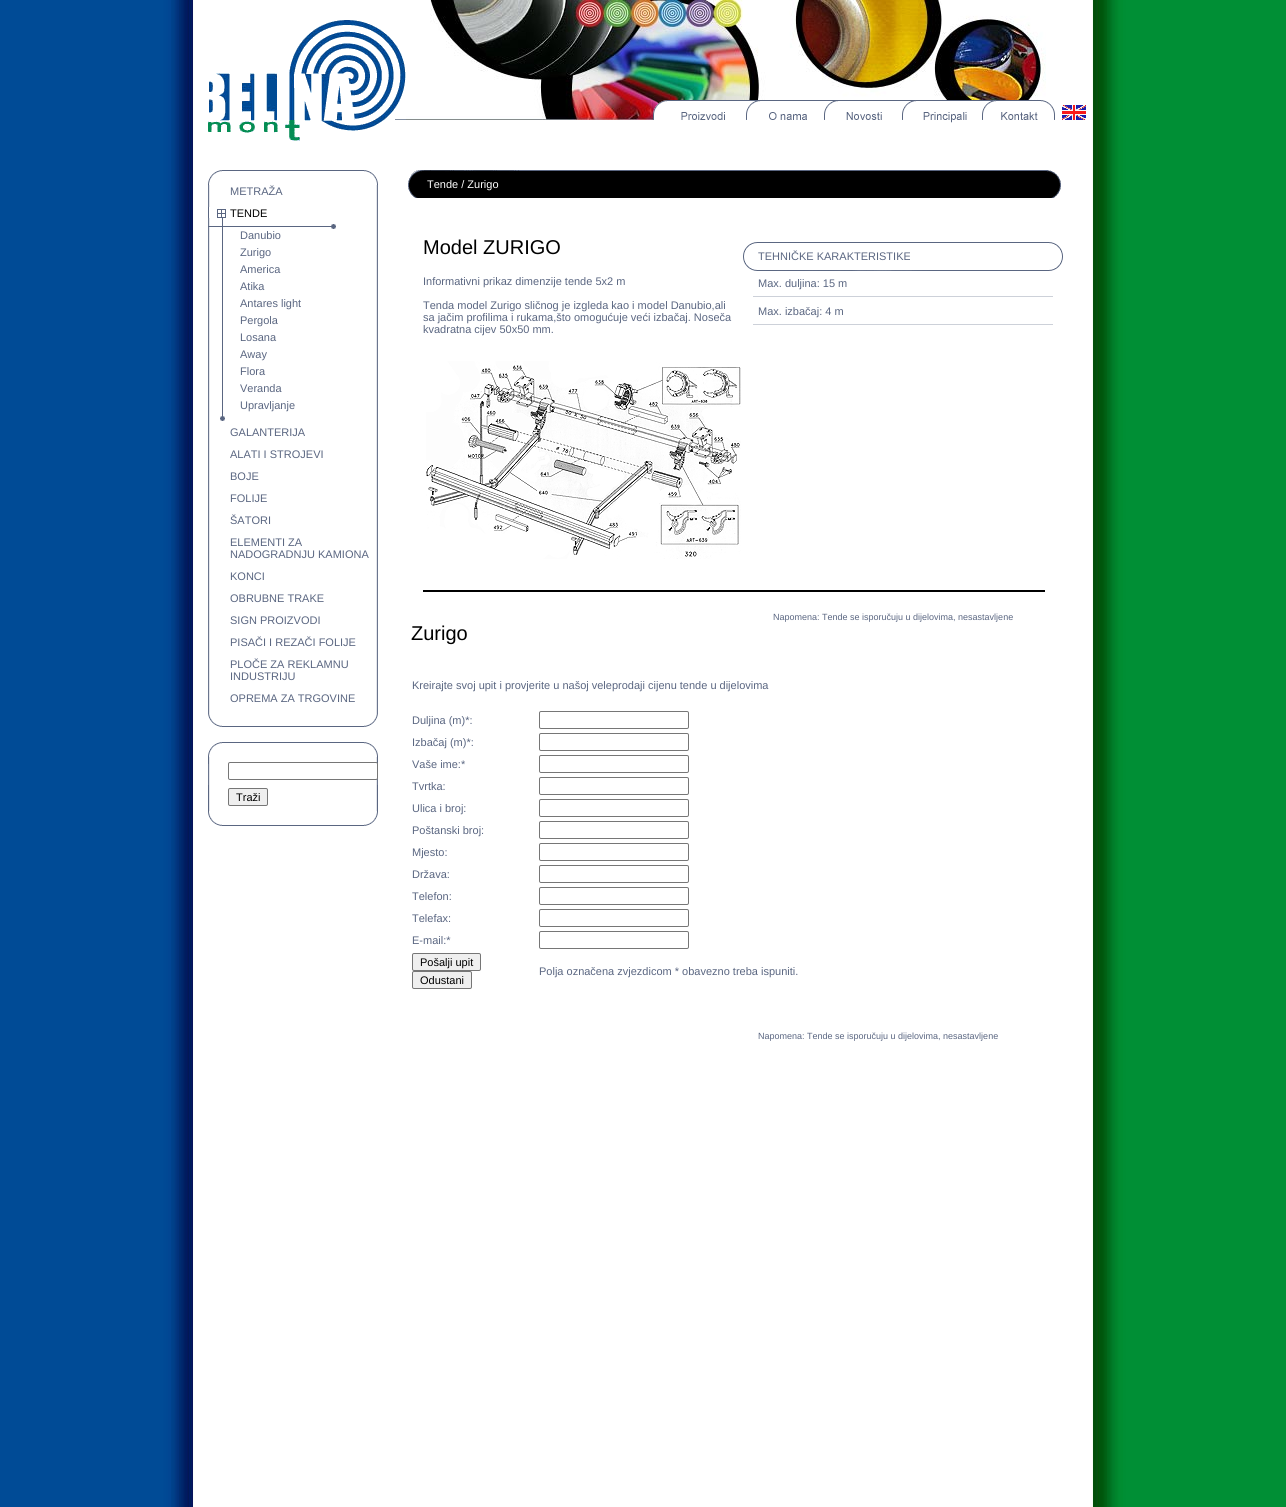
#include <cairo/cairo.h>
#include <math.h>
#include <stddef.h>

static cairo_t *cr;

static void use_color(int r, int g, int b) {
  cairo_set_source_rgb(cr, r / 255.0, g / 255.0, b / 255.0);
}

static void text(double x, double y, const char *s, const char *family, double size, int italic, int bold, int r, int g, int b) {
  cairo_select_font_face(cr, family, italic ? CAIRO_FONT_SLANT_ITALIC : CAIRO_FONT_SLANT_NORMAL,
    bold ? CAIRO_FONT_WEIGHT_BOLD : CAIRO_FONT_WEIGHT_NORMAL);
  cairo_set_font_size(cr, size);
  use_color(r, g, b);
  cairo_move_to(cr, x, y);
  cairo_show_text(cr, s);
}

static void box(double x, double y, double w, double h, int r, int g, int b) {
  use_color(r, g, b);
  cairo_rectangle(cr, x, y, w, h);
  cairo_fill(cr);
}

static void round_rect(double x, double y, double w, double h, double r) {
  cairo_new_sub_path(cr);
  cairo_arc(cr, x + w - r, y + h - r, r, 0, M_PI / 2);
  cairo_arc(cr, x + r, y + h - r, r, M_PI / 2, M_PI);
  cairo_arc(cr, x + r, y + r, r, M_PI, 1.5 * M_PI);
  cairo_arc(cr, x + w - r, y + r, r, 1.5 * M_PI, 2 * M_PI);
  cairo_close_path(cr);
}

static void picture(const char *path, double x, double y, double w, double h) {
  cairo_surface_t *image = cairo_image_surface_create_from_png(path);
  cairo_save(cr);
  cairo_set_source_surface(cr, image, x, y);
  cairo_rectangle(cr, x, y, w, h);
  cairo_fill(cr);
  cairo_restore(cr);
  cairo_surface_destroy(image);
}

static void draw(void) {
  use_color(255, 255, 255);
  cairo_paint(cr);
  picture("img_01.png", 0, 0, 1286, 1507);
  picture("img_02.png", 208, 20, 198, 121);
  picture("img_03.png", 430, 0, 616, 100);
  picture("img_04.png", 406, 100, 247, 20);
  picture("img_05.png", 653, 100, 93, 20);
  picture("img_06.png", 746, 100, 78, 20);
  picture("img_07.png", 824, 100, 78, 20);
  picture("img_08.png", 902, 100, 80, 23);
  picture("img_09.png", 982, 100, 73, 20);
  picture("img_10.png", 1062, 105, 24, 15);
  picture("img_11.png", 208, 170, 170, 15);
  picture("img_12.png", 208, 714, 170, 13);
  picture("img_13.png", 208, 185, 170, 529);
  picture("img_14.png", 220, 218, 5, 203);
  picture("img_15.png", 208, 224, 128, 5);
  picture("img_16.png", 208, 207, 18, 11);
  picture("img_17.png", 208, 757, 170, 54);
  picture("img_18.png", 208, 742, 170, 22);
  picture("img_19.png", 208, 785, 170, 41);
  use_color(255, 255, 255);
  round_rect(228.5, 762.5, 149, 17, 1.5);
  cairo_fill_preserve(cr);
  use_color(118, 118, 118);
  cairo_set_line_width(cr, 1);
  cairo_stroke(cr);
  use_color(239, 239, 239);
  round_rect(228.5, 788.5, 39, 17, 1.5);
  cairo_fill_preserve(cr);
  use_color(118, 118, 118);
  cairo_stroke(cr);
  picture("img_20.png", 408, 170, 653, 28);
  picture("img_21.png", 426, 361, 315, 198);
  picture("img_22.png", 743, 242, 320, 29);
  box(753, 296, 300, 1, 205, 209, 217);
  box(753, 324, 300, 1, 205, 209, 217);
  box(423, 590, 622, 2, 0, 0, 0);
  round_rect(539.5, 711.5, 149, 17, 1.5);
  use_color(118, 118, 118);
  cairo_stroke(cr);
  round_rect(539.5, 733.5, 149, 17, 1.5);
  cairo_stroke(cr);
  round_rect(539.5, 755.5, 149, 17, 1.5);
  cairo_stroke(cr);
  round_rect(539.5, 777.5, 149, 17, 1.5);
  cairo_stroke(cr);
  round_rect(539.5, 799.5, 149, 17, 1.5);
  cairo_stroke(cr);
  round_rect(539.5, 821.5, 149, 17, 1.5);
  cairo_stroke(cr);
  round_rect(539.5, 843.5, 149, 17, 1.5);
  cairo_stroke(cr);
  round_rect(539.5, 865.5, 149, 17, 1.5);
  cairo_stroke(cr);
  round_rect(539.5, 887.5, 149, 17, 1.5);
  cairo_stroke(cr);
  round_rect(539.5, 909.5, 149, 17, 1.5);
  cairo_stroke(cr);
  round_rect(539.5, 931.5, 149, 17, 1.5);
  cairo_stroke(cr);
  use_color(239, 239, 239);
  round_rect(412.5, 953.5, 68, 17, 1.5);
  cairo_fill_preserve(cr);
  use_color(118, 118, 118);
  cairo_stroke(cr);
  use_color(239, 239, 239);
  round_rect(412.5, 971.5, 59, 17, 1.5);
  cairo_fill_preserve(cr);
  use_color(118, 118, 118);
  cairo_stroke(cr);
  text(230, 195, "METRAŽA", "Liberation Sans", 11, 0, 0, 90, 102, 129);
  text(230, 217, "TENDE", "Liberation Sans", 11, 0, 0, 0, 0, 0);
  text(240, 239, "Danubio", "Liberation Sans", 11, 0, 0, 90, 102, 129);
  text(240, 256, "Zurigo", "Liberation Sans", 11, 0, 0, 90, 102, 129);
  text(240, 273, "America", "Liberation Sans", 11, 0, 0, 90, 102, 129);
  text(240, 290, "Atika", "Liberation Sans", 11, 0, 0, 90, 102, 129);
  text(240, 307, "Antares light", "Liberation Sans", 11, 0, 0, 90, 102, 129);
  text(240, 324, "Pergola", "Liberation Sans", 11, 0, 0, 90, 102, 129);
  text(240, 341, "Losana", "Liberation Sans", 11, 0, 0, 90, 102, 129);
  text(240, 358, "Away", "Liberation Sans", 11, 0, 0, 90, 102, 129);
  text(240, 375, "Flora", "Liberation Sans", 11, 0, 0, 90, 102, 129);
  text(240, 392, "Veranda", "Liberation Sans", 11, 0, 0, 90, 102, 129);
  text(240, 409, "Upravljanje", "Liberation Sans", 11, 0, 0, 90, 102, 129);
  text(230, 436, "GALANTERIJA", "Liberation Sans", 11, 0, 0, 90, 102, 129);
  text(230, 458, "ALATI I STROJEVI", "Liberation Sans", 11, 0, 0, 90, 102, 129);
  text(230, 480, "BOJE", "Liberation Sans", 11, 0, 0, 90, 102, 129);
  text(230, 502, "FOLIJE", "Liberation Sans", 11, 0, 0, 90, 102, 129);
  text(230, 524, "ŠATORI", "Liberation Sans", 11, 0, 0, 90, 102, 129);
  text(230, 546, "ELEMENTI ZA", "Liberation Sans", 11, 0, 0, 90, 102, 129);
  text(230, 558, "NADOGRADNJU KAMIONA", "Liberation Sans", 11, 0, 0, 90, 102, 129);
  text(230, 580, "KONCI", "Liberation Sans", 11, 0, 0, 90, 102, 129);
  text(230, 602, "OBRUBNE TRAKE", "Liberation Sans", 11, 0, 0, 90, 102, 129);
  text(230, 624, "SIGN PROIZVODI", "Liberation Sans", 11, 0, 0, 90, 102, 129);
  text(230, 646, "PISAČI I REZAČI FOLIJE", "Liberation Sans", 11, 0, 0, 90, 102, 129);
  text(230, 668, "PLOČE ZA REKLAMNU", "Liberation Sans", 11, 0, 0, 90, 102, 129);
  text(230, 680, "INDUSTRIJU", "Liberation Sans", 11, 0, 0, 90, 102, 129);
  text(230, 702, "OPREMA ZA TRGOVINE", "Liberation Sans", 11, 0, 0, 90, 102, 129);
  text(236, 801, "Traži", "Liberation Sans", 11, 0, 0, 0, 0, 0);
  text(427, 188, "Tende / Zurigo", "Liberation Sans", 11, 0, 0, 255, 255, 255);
  text(423, 254, "Model ZURIGO", "Liberation Sans", 20, 0, 0, 0, 0, 0);
  text(423, 285, "Informativni prikaz dimenzije tende 5x2 m", "Liberation Sans", 11, 0, 0, 90, 102, 129);
  text(423, 309, "Tenda model Zurigo sličnog je izgleda kao i model Danubio,ali", "Liberation Sans", 11, 0, 0, 90, 102, 129);
  text(423, 321, "sa jačim profilima i rukama,što omogućuje veći izbačaj. Noseča", "Liberation Sans", 11, 0, 0, 90, 102, 129);
  text(423, 333, "kvadratna cijev 50x50 mm.", "Liberation Sans", 11, 0, 0, 90, 102, 129);
  text(758, 260, "TEHNIČKE KARAKTERISTIKE", "Liberation Sans", 11, 0, 0, 90, 102, 129);
  text(758, 287, "Max. duljina: 15 m", "Liberation Sans", 11, 0, 0, 90, 102, 129);
  text(758, 315, "Max. izbačaj: 4 m", "Liberation Sans", 11, 0, 0, 90, 102, 129);
  text(773, 620, "Napomena: Tende se isporučuju u dijelovima, nesastavljene", "Liberation Sans", 9, 0, 0, 90, 102, 129);
  text(411, 640, "Zurigo", "Liberation Sans", 20, 0, 0, 0, 0, 0);
  text(412, 689, "Kreirajte svoj upit i provjerite u našoj veleprodaji cijenu tende u dijelovima", "Liberation Sans", 11, 0, 0, 90, 102, 129);
  text(412, 724, "Duljina (m)*:", "Liberation Sans", 11, 0, 0, 90, 102, 129);
  text(412, 746, "Izbačaj (m)*:", "Liberation Sans", 11, 0, 0, 90, 102, 129);
  text(412, 768, "Vaše ime:*", "Liberation Sans", 11, 0, 0, 90, 102, 129);
  text(412, 790, "Tvrtka:", "Liberation Sans", 11, 0, 0, 90, 102, 129);
  text(412, 812, "Ulica i broj:", "Liberation Sans", 11, 0, 0, 90, 102, 129);
  text(412, 834, "Poštanski broj:", "Liberation Sans", 11, 0, 0, 90, 102, 129);
  text(412, 856, "Mjesto:", "Liberation Sans", 11, 0, 0, 90, 102, 129);
  text(412, 878, "Država:", "Liberation Sans", 11, 0, 0, 90, 102, 129);
  text(412, 900, "Telefon:", "Liberation Sans", 11, 0, 0, 90, 102, 129);
  text(412, 922, "Telefax:", "Liberation Sans", 11, 0, 0, 90, 102, 129);
  text(412, 944, "E-mail:*", "Liberation Sans", 11, 0, 0, 90, 102, 129);
  text(420, 966, "Pošalji upit", "Liberation Sans", 11, 0, 0, 0, 0, 0);
  text(420, 984, "Odustani", "Liberation Sans", 11, 0, 0, 0, 0, 0);
  text(539, 975, "Polja označena zvjezdicom * obavezno treba ispuniti.", "Liberation Sans", 11, 0, 0, 90, 102, 129);
  text(758, 1039, "Napomena: Tende se isporučuju u dijelovima, nesastavljene", "Liberation Sans", 9, 0, 0, 90, 102, 129);
}

int main(void) {
  cairo_surface_t *surface = cairo_image_surface_create(CAIRO_FORMAT_RGB24, 1286, 1507);
  cr = cairo_create(surface);
  cairo_font_options_t *options = cairo_font_options_create();
  cairo_font_options_set_hint_metrics(options, CAIRO_HINT_METRICS_OFF);
  cairo_font_options_set_hint_style(options, CAIRO_HINT_STYLE_NONE);
  cairo_set_font_options(cr, options);
  cairo_set_miter_limit(cr, 4);
  draw();
  cairo_surface_write_to_png(surface, "out.png");
  cairo_font_options_destroy(options);
  cairo_destroy(cr);
  cairo_surface_destroy(surface);
  return 0;
}
